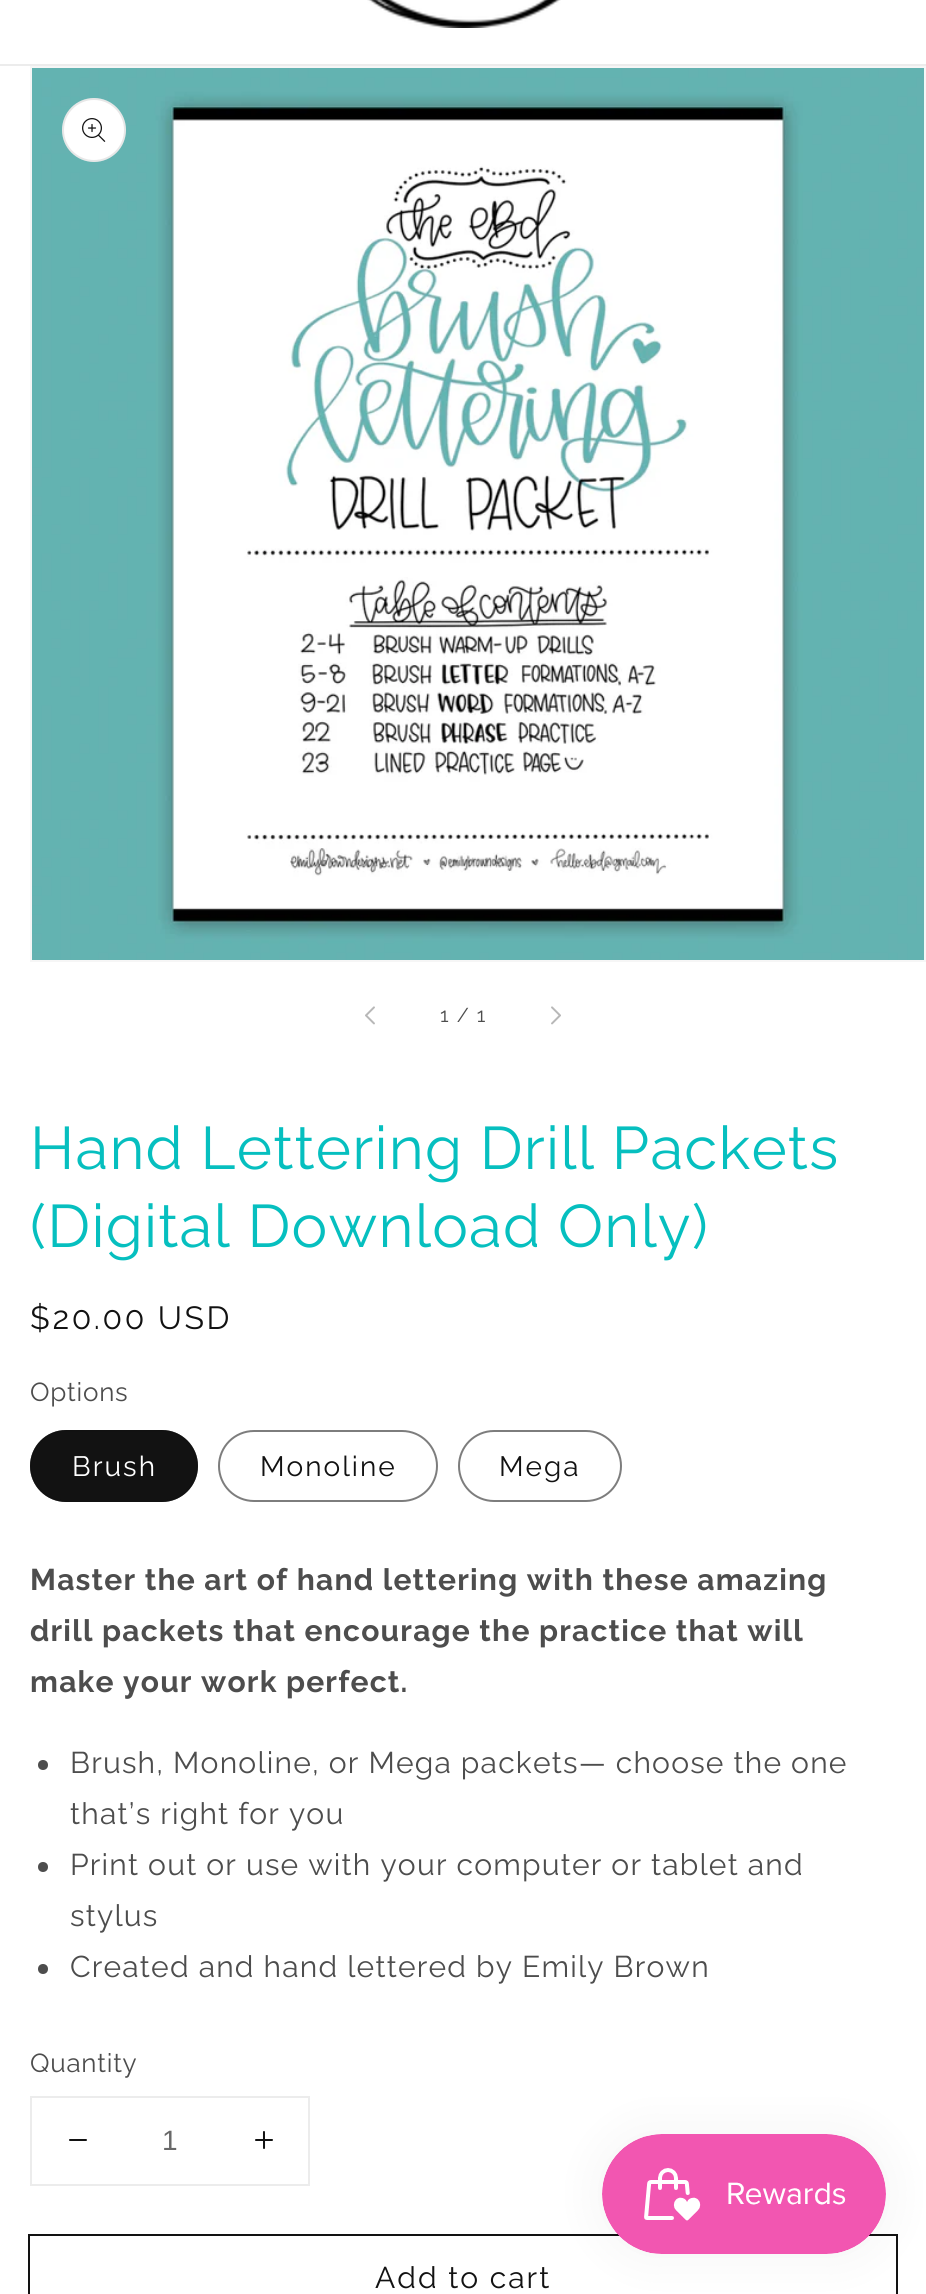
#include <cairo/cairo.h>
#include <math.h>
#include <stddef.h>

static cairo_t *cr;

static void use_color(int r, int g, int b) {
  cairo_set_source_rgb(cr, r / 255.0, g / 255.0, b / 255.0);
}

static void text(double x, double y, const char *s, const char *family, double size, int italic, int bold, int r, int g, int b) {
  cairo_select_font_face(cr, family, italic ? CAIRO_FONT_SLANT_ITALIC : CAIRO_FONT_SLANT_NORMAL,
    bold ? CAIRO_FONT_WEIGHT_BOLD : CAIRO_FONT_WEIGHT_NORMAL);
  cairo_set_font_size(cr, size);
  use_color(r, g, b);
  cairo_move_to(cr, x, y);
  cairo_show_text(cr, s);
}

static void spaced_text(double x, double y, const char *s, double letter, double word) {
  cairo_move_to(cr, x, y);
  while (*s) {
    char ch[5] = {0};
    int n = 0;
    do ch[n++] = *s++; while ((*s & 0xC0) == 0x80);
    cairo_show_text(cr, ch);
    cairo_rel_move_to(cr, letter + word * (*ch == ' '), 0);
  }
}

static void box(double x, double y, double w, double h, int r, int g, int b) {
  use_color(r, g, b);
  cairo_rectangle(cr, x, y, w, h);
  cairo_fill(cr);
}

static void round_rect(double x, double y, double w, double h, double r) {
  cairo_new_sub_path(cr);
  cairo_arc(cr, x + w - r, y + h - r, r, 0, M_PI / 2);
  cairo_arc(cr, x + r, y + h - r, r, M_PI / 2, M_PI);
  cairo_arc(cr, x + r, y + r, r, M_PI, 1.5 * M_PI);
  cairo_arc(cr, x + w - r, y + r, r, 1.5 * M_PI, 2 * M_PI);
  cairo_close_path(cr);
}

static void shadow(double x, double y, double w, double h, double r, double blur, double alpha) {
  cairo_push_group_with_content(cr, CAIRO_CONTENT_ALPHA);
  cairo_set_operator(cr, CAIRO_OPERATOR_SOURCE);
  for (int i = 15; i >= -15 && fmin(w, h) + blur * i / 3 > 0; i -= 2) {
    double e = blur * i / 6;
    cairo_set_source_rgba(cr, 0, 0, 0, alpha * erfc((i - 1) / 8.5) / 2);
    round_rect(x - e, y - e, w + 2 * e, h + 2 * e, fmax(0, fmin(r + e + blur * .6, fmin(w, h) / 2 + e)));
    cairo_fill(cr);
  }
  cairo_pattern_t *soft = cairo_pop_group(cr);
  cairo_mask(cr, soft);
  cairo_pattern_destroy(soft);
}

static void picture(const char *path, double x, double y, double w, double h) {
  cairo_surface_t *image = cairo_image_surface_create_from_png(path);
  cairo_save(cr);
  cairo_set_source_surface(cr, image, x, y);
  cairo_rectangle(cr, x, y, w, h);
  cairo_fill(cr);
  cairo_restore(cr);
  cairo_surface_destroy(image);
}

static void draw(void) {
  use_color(255, 255, 255);
  cairo_paint(cr);
  box(0, 64, 926, 2, 236, 236, 236);
  picture("img_01.png", 367, 0, 194, 28);
  cairo_rectangle(cr, 31, 67, 894, 894);
  use_color(246, 246, 246);
  cairo_stroke(cr);
  picture("img_02.png", 32, 68, 892, 892);
  use_color(255, 255, 255);
  cairo_arc(cr, 94, 130, 32, 0, 2 * M_PI);
  cairo_fill(cr);
  cairo_arc(cr, 94, 130, 31, 0, 2 * M_PI);
  cairo_set_source_rgba(cr, 0.071, 0.071, 0.071, 0.1);
  cairo_stroke(cr);
  picture("img_03.png", 82, 118, 24, 24);
  picture("img_04.png", 365, 1006, 10, 19);
  picture("img_05.png", 551, 1006, 10, 19);
  use_color(18, 18, 18);
  round_rect(30, 1430, 168, 72, 36);
  cairo_fill(cr);
  round_rect(31, 1431, 166, 70, 35);
  cairo_set_source_rgba(cr, 0.071, 0.071, 0.071, 0.55);
  cairo_stroke(cr);
  round_rect(219, 1431, 218, 70, 35);
  use_color(125, 125, 125);
  cairo_stroke(cr);
  round_rect(459, 1431, 162, 70, 35);
  cairo_stroke(cr);
  use_color(77, 77, 77);
  cairo_arc(cr, 43, 1765, 5, 0, 2 * M_PI);
  cairo_fill(cr);
  cairo_arc(cr, 43, 1867, 5, 0, 2 * M_PI);
  cairo_fill(cr);
  cairo_arc(cr, 43, 1969, 5, 0, 2 * M_PI);
  cairo_fill(cr);
  cairo_rectangle(cr, 31, 2097, 278, 88);
  use_color(236, 236, 236);
  cairo_stroke(cr);
  picture("img_06.png", 69, 2139, 18, 2);
  picture("img_07.png", 255, 2131, 18, 18);
  cairo_rectangle(cr, 29, 2235, 868, 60);
  use_color(18, 18, 18);
  cairo_stroke(cr);
  use_color(0, 0, 0);
  shadow(602, 2134, 284, 120, 60, 25, 0.05);
  picture("img_08.png", 602, 2134, 284, 120);
  cairo_select_font_face(cr, "Raleway", CAIRO_FONT_SLANT_NORMAL, CAIRO_FONT_WEIGHT_NORMAL);
  cairo_set_font_size(cr, 20);
  use_color(77, 77, 77);
  spaced_text(440, 1022, "1 / 1", 1.5, 0);
  cairo_set_font_size(cr, 60);
  use_color(6, 191, 191);
  spaced_text(30, 1169, "Hand Lettering Drill Packets", 1.2, 0);
  spaced_text(30, 1247, "(Digital Download Only)", 1.2, 0);
  cairo_set_font_size(cr, 32);
  use_color(18, 18, 18);
  spaced_text(30, 1329, "$20.00 USD", 2.6, 0);
  cairo_set_font_size(cr, 26);
  use_color(77, 77, 77);
  spaced_text(30, 1401, "Options", 0.75, 0);
  cairo_set_font_size(cr, 28);
  use_color(255, 255, 255);
  spaced_text(72, 1476, "Brush", 2, 0);
  use_color(18, 18, 18);
  spaced_text(260, 1476, "Monoline", 2, 0);
  spaced_text(499, 1476, "Mega", 2, 0);
  cairo_select_font_face(cr, "Raleway", CAIRO_FONT_SLANT_NORMAL, CAIRO_FONT_WEIGHT_BOLD);
  cairo_set_font_size(cr, 30);
  use_color(77, 77, 77);
  spaced_text(30, 1590, "Master the art of hand lettering with these amazing", 1.2, 0);
  spaced_text(30, 1641, "drill packets that encourage the practice that will", 1.2, 0);
  spaced_text(30, 1692, "make your work perfect.", 1.2, 0);
  cairo_select_font_face(cr, "Raleway", CAIRO_FONT_SLANT_NORMAL, CAIRO_FONT_WEIGHT_NORMAL);
  spaced_text(70, 1773, "Brush, Monoline, or Mega packets— choose the one", 1.2, 0);
  spaced_text(70, 1824, "that’s right for you", 1.2, 0);
  spaced_text(70, 1875, "Print out or use with your computer or tablet and", 1.2, 0);
  spaced_text(70, 1926, "stylus", 1.2, 0);
  spaced_text(70, 1977, "Created and hand lettered by Emily Brown", 1.2, 0);
  cairo_set_font_size(cr, 26);
  spaced_text(30, 2072, "Quantity", 0.75, 0);
  text(162, 2150, "1", "Liberation Sans", 28, 0, 0, 104, 104, 104);
  cairo_select_font_face(cr, "Raleway", CAIRO_FONT_SLANT_NORMAL, CAIRO_FONT_WEIGHT_NORMAL);
  cairo_set_font_size(cr, 30);
  use_color(18, 18, 18);
  spaced_text(375, 2288, "Add to cart", 2, 0);
}

int main(void) {
  cairo_surface_t *surface = cairo_image_surface_create(CAIRO_FORMAT_RGB24, 926, 2294);
  cr = cairo_create(surface);
  cairo_font_options_t *options = cairo_font_options_create();
  cairo_font_options_set_hint_metrics(options, CAIRO_HINT_METRICS_OFF);
  cairo_font_options_set_hint_style(options, CAIRO_HINT_STYLE_NONE);
  cairo_set_font_options(cr, options);
  cairo_set_miter_limit(cr, 4);
  draw();
  cairo_surface_write_to_png(surface, "out.png");
  cairo_font_options_destroy(options);
  cairo_destroy(cr);
  cairo_surface_destroy(surface);
  return 0;
}
